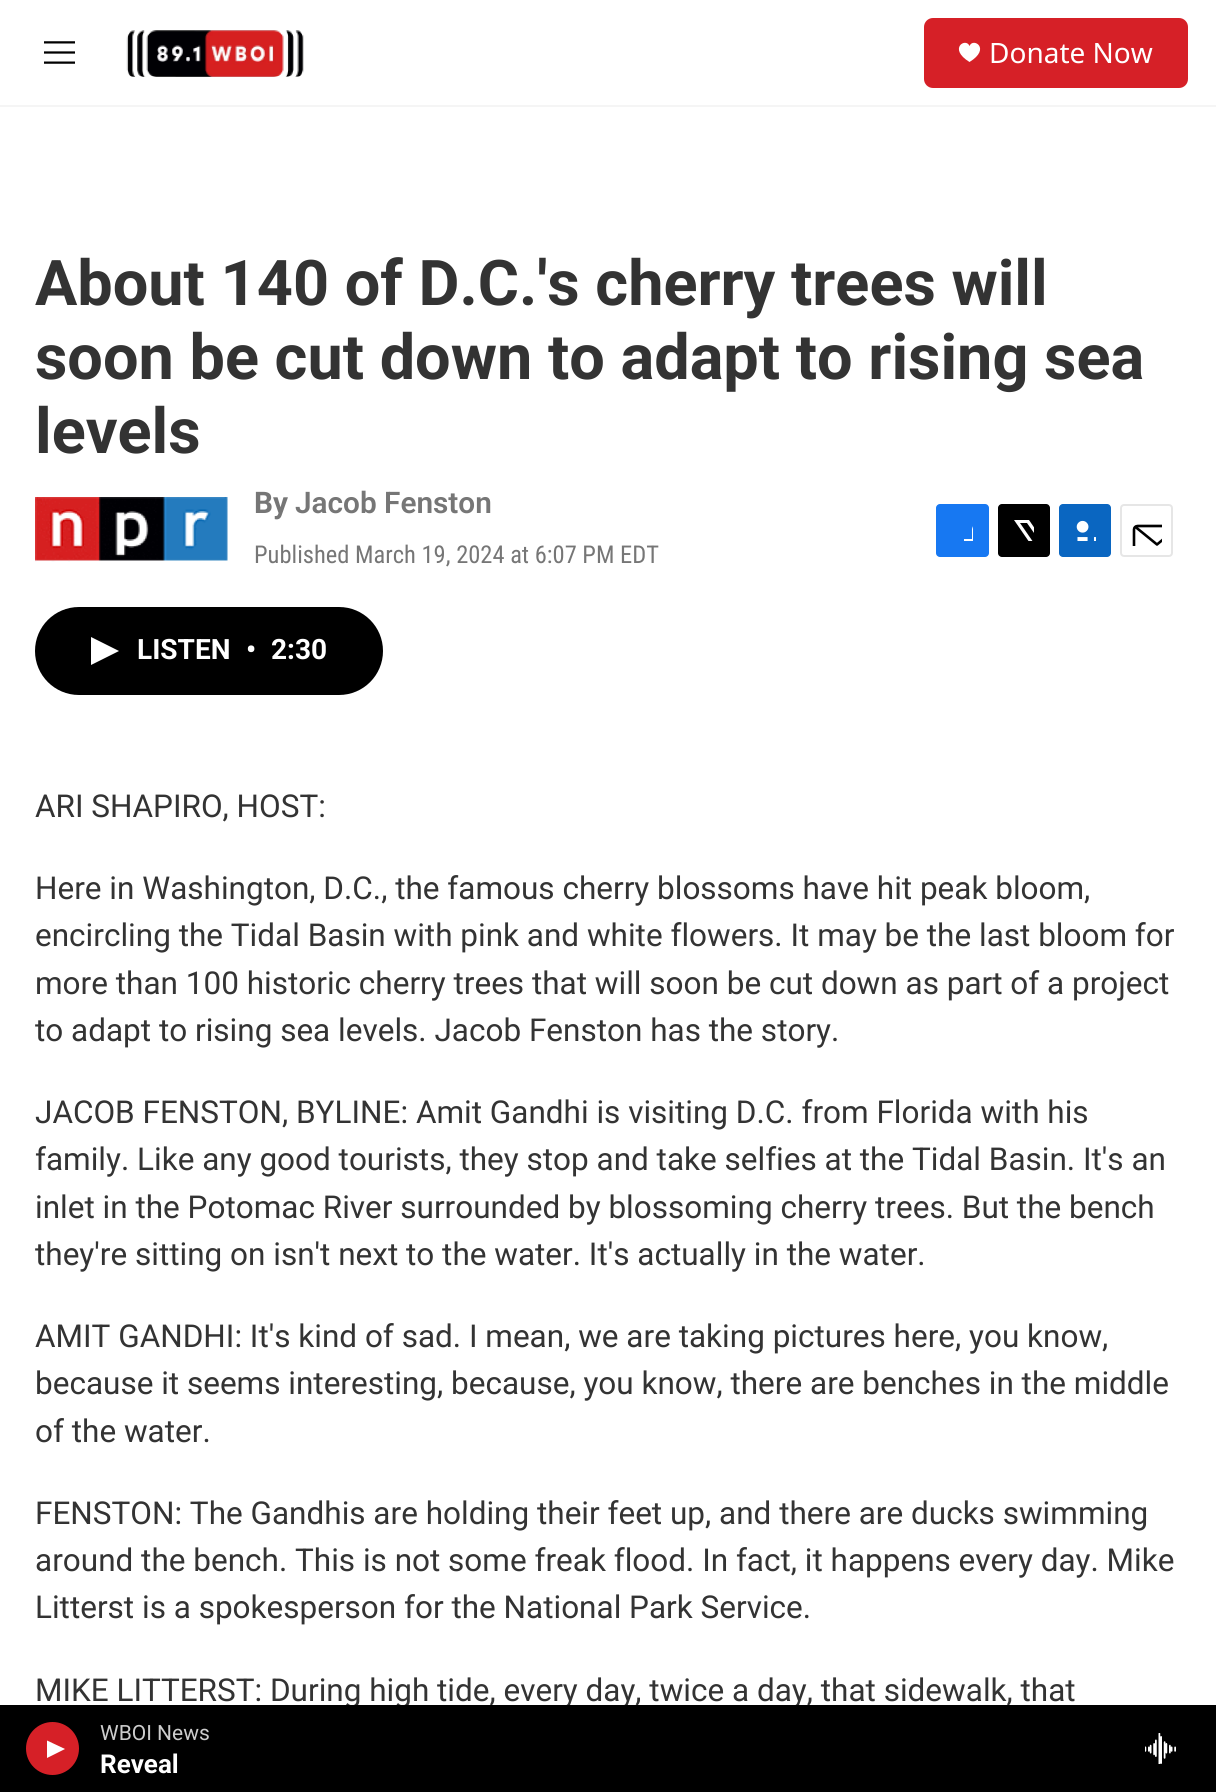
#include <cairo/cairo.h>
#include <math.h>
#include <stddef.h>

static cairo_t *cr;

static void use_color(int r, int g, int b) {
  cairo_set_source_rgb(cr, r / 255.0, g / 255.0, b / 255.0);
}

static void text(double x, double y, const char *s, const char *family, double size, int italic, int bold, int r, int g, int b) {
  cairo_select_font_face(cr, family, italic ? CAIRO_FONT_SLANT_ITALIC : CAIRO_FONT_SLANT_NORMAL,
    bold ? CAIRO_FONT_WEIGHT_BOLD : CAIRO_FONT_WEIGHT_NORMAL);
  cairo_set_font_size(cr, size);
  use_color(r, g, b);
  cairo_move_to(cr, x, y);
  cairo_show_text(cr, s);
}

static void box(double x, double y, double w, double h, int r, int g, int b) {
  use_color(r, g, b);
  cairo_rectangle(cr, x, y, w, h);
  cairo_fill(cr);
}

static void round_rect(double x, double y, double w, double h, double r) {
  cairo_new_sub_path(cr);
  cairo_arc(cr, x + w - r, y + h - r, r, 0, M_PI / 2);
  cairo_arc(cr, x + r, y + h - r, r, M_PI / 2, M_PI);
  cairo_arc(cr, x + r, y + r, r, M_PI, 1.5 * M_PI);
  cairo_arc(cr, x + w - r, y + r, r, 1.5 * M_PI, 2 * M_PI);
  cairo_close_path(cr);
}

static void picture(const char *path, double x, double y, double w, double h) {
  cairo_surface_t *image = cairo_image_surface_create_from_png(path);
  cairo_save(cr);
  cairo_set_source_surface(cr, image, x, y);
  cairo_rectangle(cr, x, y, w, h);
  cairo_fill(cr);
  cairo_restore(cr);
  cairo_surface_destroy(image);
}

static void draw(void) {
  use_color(255, 255, 255);
  cairo_paint(cr);
  box(0, 105, 1216, 2, 245, 245, 245);
  picture("img_01.png", 44, 41, 31, 23);
  picture("img_02.png", 126, 30, 178, 47);
  use_color(214, 32, 39);
  round_rect(924, 18, 264, 70, 9);
  cairo_fill(cr);
  use_color(255, 255, 255);
  cairo_new_path(cr);
  cairo_move_to(cr, 969.5, 46);
  cairo_curve_to(cr, 966, 37, 947.5, 48.5, 969.5, 62);
  cairo_curve_to(cr, 991.5, 48.5, 973, 37, 969.5, 46);
  cairo_close_path(cr);
  cairo_fill(cr);
  picture("img_04.png", 35, 497, 193, 65);
  use_color(23, 120, 242);
  round_rect(936, 504, 53, 53, 4);
  cairo_fill(cr);
  cairo_save(cr);
  cairo_rectangle(cr, 952, 520, 21, 21);
  cairo_clip(cr);
  use_color(255, 255, 255);
  cairo_new_path(cr);
  cairo_move_to(cr, 981, 557);
  cairo_line_to(cr, 972, 557);
  cairo_line_to(cr, 972, 548);
  cairo_line_to(cr, 964, 548);
  cairo_line_to(cr, 964, 539);
  cairo_line_to(cr, 972, 539);
  cairo_line_to(cr, 972, 529);
  cairo_curve_to(cr, 974, 520.5, 982, 520, 989, 521);
  cairo_line_to(cr, 989, 529);
  cairo_curve_to(cr, 979.5, 529, 981, 530.5, 981, 539);
  cairo_line_to(cr, 989, 539);
  cairo_line_to(cr, 988, 548);
  cairo_line_to(cr, 981, 548);
  cairo_close_path(cr);
  cairo_fill(cr);
  cairo_restore(cr);
  use_color(0, 0, 0);
  round_rect(998, 504, 52, 53, 4);
  cairo_fill(cr);
  cairo_save(cr);
  cairo_rectangle(cr, 1013, 520, 21, 21);
  cairo_clip(cr);
  use_color(255, 255, 255);
  cairo_new_path(cr);
  cairo_move_to(cr, 1044, 542);
  cairo_line_to(cr, 1050, 550.5);
  cairo_curve_to(cr, 1050, 552, 1050, 554, 1049.5, 555);
  cairo_line_to(cr, 1027, 523);
  cairo_line_to(cr, 1020, 523);
  cairo_line_to(cr, 1043.5, 557);
  cairo_line_to(cr, 1039.5, 557);
  cairo_line_to(cr, 1036, 552);
  cairo_line_to(cr, 1031.5, 557);
  cairo_line_to(cr, 1027, 557);
  cairo_line_to(cr, 1034, 549);
  cairo_line_to(cr, 1014, 520);
  cairo_line_to(cr, 1029, 520);
  cairo_line_to(cr, 1042, 539);
  cairo_line_to(cr, 1050, 530);
  cairo_line_to(cr, 1050, 535);
  cairo_close_path(cr);
  cairo_fill(cr);
  cairo_restore(cr);
  use_color(10, 102, 193);
  round_rect(1059, 504, 52, 53, 4);
  cairo_fill(cr);
  picture("img_05.png", 1076, 520, 20, 21);
  round_rect(1121, 505, 51, 51, 3);
  use_color(230, 230, 230);
  cairo_stroke(cr);
  cairo_save(cr);
  cairo_rectangle(cr, 1131, 515, 31, 31);
  cairo_clip(cr);
  cairo_new_path(cr);
  cairo_move_to(cr, 1179.5, 553);
  cairo_curve_to(cr, 1179.5, 554.5, 1178, 556, 1176, 556);
  cairo_line_to(cr, 1137.5, 556);
  cairo_curve_to(cr, 1135.5, 556, 1134, 554.5, 1134, 553);
  cairo_line_to(cr, 1134, 529.5);
  cairo_curve_to(cr, 1134, 527.5, 1135.5, 526, 1137.5, 526);
  cairo_line_to(cr, 1176, 526);
  cairo_curve_to(cr, 1178, 526, 1179.5, 527.5, 1179.5, 529.5);
  cairo_close_path(cr);
  cairo_move_to(cr, 1178, 527);
  cairo_line_to(cr, 1157, 544.5);
  cairo_line_to(cr, 1135.5, 527);
  use_color(0, 0, 0);
  cairo_set_line_width(cr, 2.6);
  cairo_set_line_cap(cr, CAIRO_LINE_CAP_ROUND);
  cairo_set_line_join(cr, CAIRO_LINE_JOIN_ROUND);
  cairo_stroke(cr);
  cairo_restore(cr);
  use_color(0, 0, 0);
  round_rect(35, 607, 348, 88, 44);
  cairo_fill(cr);
  use_color(255, 255, 255);
  cairo_new_path(cr);
  cairo_move_to(cr, 91, 637);
  cairo_line_to(cr, 119, 651);
  cairo_line_to(cr, 91, 665);
  cairo_close_path(cr);
  cairo_fill(cr);
  text(989, 63, "Donate Now", "Noto Sans", 28, 0, 0, 255, 255, 255);
  text(35, 305, "About 140 of D.C.'s cherry trees will", "Roboto", 63, 0, 1, 51, 51, 51);
  text(35, 379, "soon be cut down to adapt to rising sea", "Roboto", 63, 0, 1, 51, 51, 51);
  text(35, 453, "levels", "Roboto", 63, 0, 1, 51, 51, 51);
  text(254, 513, "By", "Roboto", 29.75, 0, 1, 118, 118, 118);
  text(295, 513, "Jacob Fenston", "Roboto SemiBold", 29.75, 0, 0, 118, 118, 118);
  text(254, 563, "Published March 19, 2024 at 6:07 PM EDT", "Roboto Condensed", 24.5, 0, 0, 118, 118, 118);
  text(137, 659, "LISTEN", "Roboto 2", 28, 0, 1, 255, 255, 255);
  text(246, 659, "•", "Roboto 2", 28, 0, 1, 255, 255, 255);
  text(271, 659, "2:30", "Roboto 2", 28, 0, 1, 255, 255, 255);
  text(35, 817, "ARI SHAPIRO, HOST:", "Roboto", 31.5, 0, 0, 51, 51, 51);
  text(35, 899, "Here in Washington, D.C., the famous cherry blossoms have hit peak bloom,", "Roboto", 31.5, 0, 0, 51, 51, 51);
  text(35, 946, "encircling the Tidal Basin with pink and white flowers. It may be the last bloom for", "Roboto", 31.5, 0, 0, 51, 51, 51);
  text(35, 994, "more than 100 historic cherry trees that will soon be cut down as part of a project", "Roboto", 31.5, 0, 0, 51, 51, 51);
  text(35, 1041, "to adapt to rising sea levels. Jacob Fenston has the story.", "Roboto", 31.5, 0, 0, 51, 51, 51);
  text(35, 1123, "JACOB FENSTON, BYLINE: Amit Gandhi is visiting D.C. from Florida with his", "Roboto", 31.5, 0, 0, 51, 51, 51);
  text(35, 1170, "family. Like any good tourists, they stop and take selfies at the Tidal Basin. It's an", "Roboto", 31.5, 0, 0, 51, 51, 51);
  text(35, 1218, "inlet in the Potomac River surrounded by blossoming cherry trees. But the bench", "Roboto", 31.5, 0, 0, 51, 51, 51);
  text(35, 1265, "they're sitting on isn't next to the water. It's actually in the water.", "Roboto", 31.5, 0, 0, 51, 51, 51);
  text(35, 1347, "AMIT GANDHI: It's kind of sad. I mean, we are taking pictures here, you know,", "Roboto", 31.5, 0, 0, 51, 51, 51);
  text(35, 1394, "because it seems interesting, because, you know, there are benches in the middle", "Roboto", 31.5, 0, 0, 51, 51, 51);
  text(35, 1442, "of the water.", "Roboto", 31.5, 0, 0, 51, 51, 51);
  text(35, 1524, "FENSTON: The Gandhis are holding their feet up, and there are ducks swimming", "Roboto", 31.5, 0, 0, 51, 51, 51);
  text(35, 1571, "around the bench. This is not some freak flood. In fact, it happens every day. Mike", "Roboto", 31.5, 0, 0, 51, 51, 51);
  text(35, 1618, "Litterst is a spokesperson for the National Park Service.", "Roboto", 31.5, 0, 0, 51, 51, 51);
  text(35, 1701, "MIKE LITTERST: During high tide, every day, twice a day, that sidewalk, that", "Roboto", 31.5, 0, 0, 51, 51, 51);
  box(0, 1705, 1216, 87, 0, 0, 0);
  text(100, 1740, "WBOI News", "Roboto", 21, 0, 0, 204, 204, 204);
  picture("img_03.png", 1145, 1733, 31, 31);
  text(100, 1773, "Reveal", "Roboto 2", 26, 0, 1, 255, 255, 255);
  use_color(214, 32, 39);
  cairo_new_path(cr);
  cairo_arc(cr, 52.5, 1748.5, 26.5, 0, 2 * M_PI);
  cairo_fill(cr);
  use_color(255, 255, 255);
  cairo_new_path(cr);
  cairo_move_to(cr, 47, 1740.5);
  cairo_line_to(cr, 65, 1749);
  cairo_line_to(cr, 47, 1758);
  cairo_close_path(cr);
  cairo_fill(cr);
}

int main(void) {
  cairo_surface_t *surface = cairo_image_surface_create(CAIRO_FORMAT_RGB24, 1216, 1792);
  cr = cairo_create(surface);
  cairo_font_options_t *options = cairo_font_options_create();
  cairo_font_options_set_hint_metrics(options, CAIRO_HINT_METRICS_OFF);
  cairo_font_options_set_hint_style(options, CAIRO_HINT_STYLE_NONE);
  cairo_set_font_options(cr, options);
  cairo_set_miter_limit(cr, 4);
  draw();
  cairo_surface_write_to_png(surface, "out.png");
  cairo_font_options_destroy(options);
  cairo_destroy(cr);
  cairo_surface_destroy(surface);
  return 0;
}
